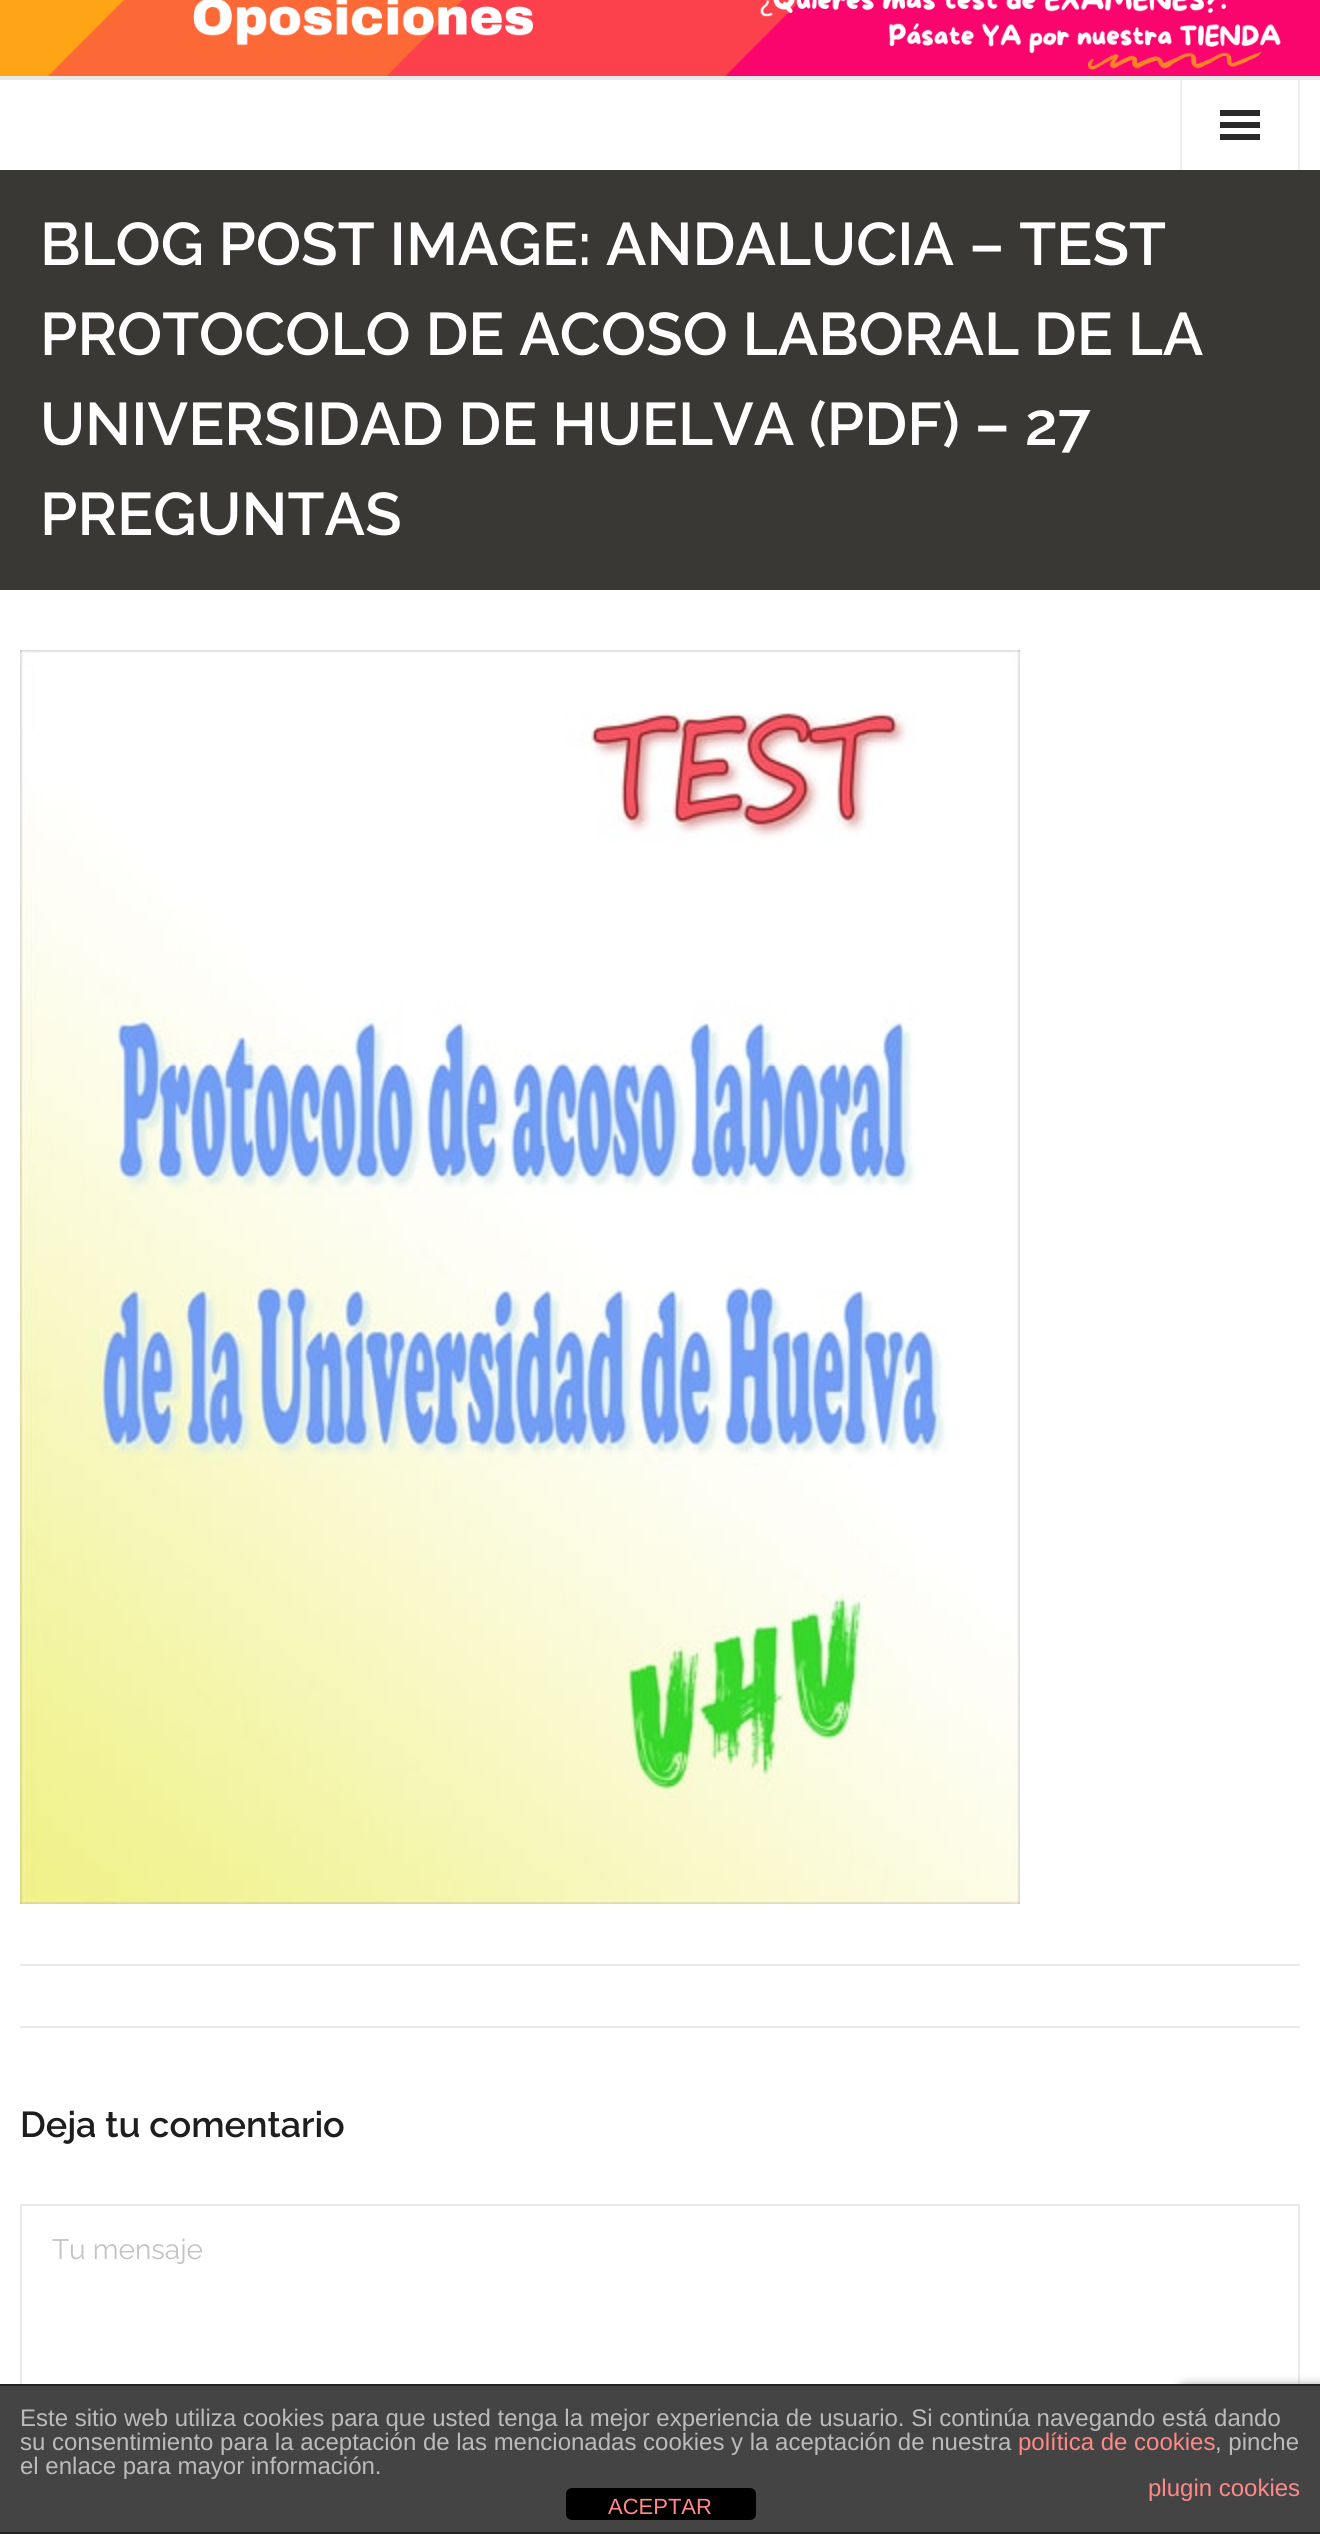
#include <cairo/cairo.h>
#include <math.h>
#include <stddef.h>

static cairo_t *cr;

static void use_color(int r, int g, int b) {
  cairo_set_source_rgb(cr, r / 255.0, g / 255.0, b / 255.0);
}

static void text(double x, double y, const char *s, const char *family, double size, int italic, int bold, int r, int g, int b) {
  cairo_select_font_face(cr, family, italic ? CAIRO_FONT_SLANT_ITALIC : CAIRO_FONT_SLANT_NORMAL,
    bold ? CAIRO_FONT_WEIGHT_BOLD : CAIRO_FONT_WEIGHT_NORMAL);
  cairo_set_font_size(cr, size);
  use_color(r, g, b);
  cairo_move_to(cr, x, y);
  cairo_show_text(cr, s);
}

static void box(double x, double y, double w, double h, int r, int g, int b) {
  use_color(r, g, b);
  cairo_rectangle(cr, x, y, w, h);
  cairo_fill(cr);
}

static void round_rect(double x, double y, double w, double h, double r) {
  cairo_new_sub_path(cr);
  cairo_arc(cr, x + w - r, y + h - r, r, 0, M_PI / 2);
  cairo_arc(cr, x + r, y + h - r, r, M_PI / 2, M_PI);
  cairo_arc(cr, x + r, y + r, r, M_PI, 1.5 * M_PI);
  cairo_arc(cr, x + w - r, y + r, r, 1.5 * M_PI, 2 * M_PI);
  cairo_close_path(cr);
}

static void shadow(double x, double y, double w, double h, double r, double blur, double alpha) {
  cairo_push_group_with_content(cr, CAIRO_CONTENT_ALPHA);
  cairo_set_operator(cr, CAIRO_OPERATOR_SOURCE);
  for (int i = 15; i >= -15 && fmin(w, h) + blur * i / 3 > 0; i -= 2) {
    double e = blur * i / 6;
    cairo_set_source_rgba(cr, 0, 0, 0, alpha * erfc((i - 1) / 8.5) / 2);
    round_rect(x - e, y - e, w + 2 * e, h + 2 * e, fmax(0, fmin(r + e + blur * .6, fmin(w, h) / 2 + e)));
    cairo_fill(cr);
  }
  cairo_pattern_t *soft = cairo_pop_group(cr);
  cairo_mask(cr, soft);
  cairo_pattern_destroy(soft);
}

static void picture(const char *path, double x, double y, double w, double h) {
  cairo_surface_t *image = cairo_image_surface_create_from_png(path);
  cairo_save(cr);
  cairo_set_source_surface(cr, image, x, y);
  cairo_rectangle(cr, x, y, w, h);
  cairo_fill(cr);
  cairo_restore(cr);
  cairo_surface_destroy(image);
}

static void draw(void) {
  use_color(255, 255, 255);
  cairo_paint(cr);
  picture("img_01.png", 0, 0, 1320, 76);
  box(0, 76, 1320, 4, 233, 233, 233);
  box(1298, 80, 2, 90, 238, 238, 238);
  box(1180, 80, 2, 90, 238, 238, 238);
  box(1220, 110, 40, 6, 41, 41, 41);
  box(1220, 122, 40, 6, 41, 41, 41);
  box(1220, 134, 40, 6, 41, 41, 41);
  box(0, 170, 1320, 420, 58, 56, 53);
  picture("img_02.png", 20, 650, 1000, 1254);
  box(20, 1964, 1280, 2, 233, 233, 233);
  box(20, 2026, 1280, 2, 233, 233, 233);
  cairo_rectangle(cr, 21, 2205, 1278, 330);
  cairo_stroke(cr);
  use_color(128, 128, 128);
  shadow(1180, 2386, 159, 120, 4, 5, 1);
  box(0, 2386, 1320, 146, 68, 68, 68);
  box(0, 2384, 1320, 2, 34, 34, 34);
  box(0, 2532, 1320, 2, 34, 34, 34);
  use_color(0, 0, 0);
  round_rect(566, 2488, 190, 32, 6);
  cairo_fill(cr);
  text(40, 265, "BLOG POST IMAGE: ANDALUCIA – TEST", "Raleway SemiBold", 60, 0, 0, 255, 255, 255);
  text(40, 355, "PROTOCOLO DE ACOSO LABORAL DE LA", "Raleway SemiBold", 60, 0, 0, 255, 255, 255);
  text(40, 445, "UNIVERSIDAD DE HUELVA (PDF) – 27", "Raleway SemiBold", 60, 0, 0, 255, 255, 255);
  text(40, 535, "PREGUNTAS", "Raleway SemiBold", 60, 0, 0, 255, 255, 255);
  text(20, 2137, "Deja tu comentario", "Raleway SemiBold", 36, 0, 0, 30, 30, 30);
  text(52, 2259, "Tu mensaje", "Raleway", 28, 0, 0, 195, 195, 195);
  text(20, 2426, "Este sitio web utiliza cookies para que usted tenga la mejor experiencia de usuario. Si continúa navegando está dando", "Liberation Sans", 24, 0, 0, 187, 187, 187);
  text(20, 2450, "su consentimiento para la aceptación de las mencionadas cookies y la aceptación de nuestra", "Liberation Sans", 24, 0, 0, 187, 187, 187);
  text(1018, 2450, "política de cookies", "Liberation Sans", 24, 0, 0, 255, 136, 136);
  text(1215, 2450, ", pinche", "Liberation Sans", 24, 0, 0, 187, 187, 187);
  text(20, 2474, "el enlace para mayor información.", "Liberation Sans", 24, 0, 0, 187, 187, 187);
  text(1148, 2496, "plugin cookies", "Liberation Sans", 24, 0, 0, 255, 136, 136);
  text(608, 2514, "ACEPTAR", "Liberation Sans", 22, 0, 0, 255, 136, 136);
}

int main(void) {
  cairo_surface_t *surface = cairo_image_surface_create(CAIRO_FORMAT_RGB24, 1320, 2534);
  cr = cairo_create(surface);
  cairo_font_options_t *options = cairo_font_options_create();
  cairo_font_options_set_hint_metrics(options, CAIRO_HINT_METRICS_OFF);
  cairo_font_options_set_hint_style(options, CAIRO_HINT_STYLE_NONE);
  cairo_set_font_options(cr, options);
  cairo_set_miter_limit(cr, 4);
  draw();
  cairo_surface_write_to_png(surface, "out.png");
  cairo_font_options_destroy(options);
  cairo_destroy(cr);
  cairo_surface_destroy(surface);
  return 0;
}
